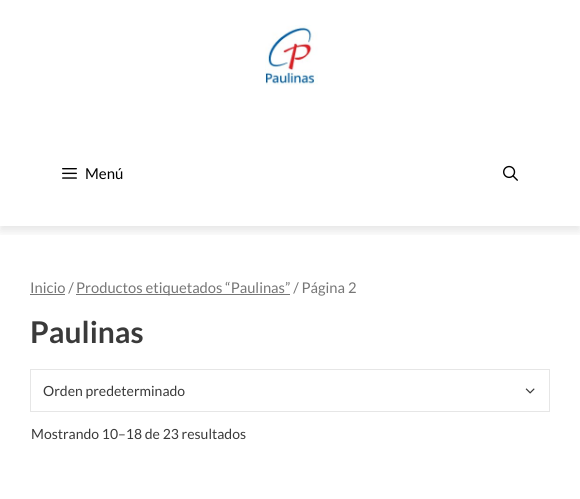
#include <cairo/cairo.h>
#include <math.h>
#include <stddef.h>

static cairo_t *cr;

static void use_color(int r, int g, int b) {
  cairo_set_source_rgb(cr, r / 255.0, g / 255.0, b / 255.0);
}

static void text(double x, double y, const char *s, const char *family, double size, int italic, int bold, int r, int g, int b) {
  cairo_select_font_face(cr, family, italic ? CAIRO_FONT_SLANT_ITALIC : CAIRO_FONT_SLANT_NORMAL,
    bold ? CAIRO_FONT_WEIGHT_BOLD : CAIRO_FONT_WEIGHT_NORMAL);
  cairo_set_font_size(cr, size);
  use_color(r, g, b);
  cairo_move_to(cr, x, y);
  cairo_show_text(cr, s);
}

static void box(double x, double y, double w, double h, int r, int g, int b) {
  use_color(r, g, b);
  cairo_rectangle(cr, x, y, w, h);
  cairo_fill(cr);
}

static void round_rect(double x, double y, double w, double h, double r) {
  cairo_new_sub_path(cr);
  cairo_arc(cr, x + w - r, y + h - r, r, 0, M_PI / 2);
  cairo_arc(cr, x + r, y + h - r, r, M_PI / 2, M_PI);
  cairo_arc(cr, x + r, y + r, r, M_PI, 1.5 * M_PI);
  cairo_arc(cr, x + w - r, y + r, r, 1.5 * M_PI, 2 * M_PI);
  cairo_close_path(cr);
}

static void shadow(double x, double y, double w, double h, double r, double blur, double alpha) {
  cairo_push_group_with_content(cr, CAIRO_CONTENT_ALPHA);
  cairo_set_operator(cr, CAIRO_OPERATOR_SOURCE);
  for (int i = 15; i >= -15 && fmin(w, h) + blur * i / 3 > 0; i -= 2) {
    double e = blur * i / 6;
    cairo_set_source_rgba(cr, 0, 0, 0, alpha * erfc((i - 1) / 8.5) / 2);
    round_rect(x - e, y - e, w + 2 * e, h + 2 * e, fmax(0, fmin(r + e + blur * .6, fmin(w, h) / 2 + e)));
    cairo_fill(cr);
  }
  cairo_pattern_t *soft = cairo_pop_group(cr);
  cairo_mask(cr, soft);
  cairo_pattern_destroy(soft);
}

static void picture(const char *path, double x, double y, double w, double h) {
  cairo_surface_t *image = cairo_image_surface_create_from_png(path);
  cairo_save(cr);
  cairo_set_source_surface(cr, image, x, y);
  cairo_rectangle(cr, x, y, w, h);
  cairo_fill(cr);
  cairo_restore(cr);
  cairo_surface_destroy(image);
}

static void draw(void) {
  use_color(255, 255, 255);
  cairo_paint(cr);
  cairo_save(cr);
  cairo_rectangle(cr, 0, 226, 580, 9);
  cairo_clip(cr);
  use_color(0, 0, 0);
  shadow(0, 5, 580, 226, 0, 5, 0.1);
  cairo_restore(cr);
  picture("img_01.png", 265, 25, 53, 60);
  picture("img_02.png", 62, 168, 15, 11);
  picture("img_03.png", 503, 165, 15, 16);
  box(30, 294, 35, 1, 118, 118, 118);
  box(76, 294, 214, 1, 118, 118, 118);
  cairo_rectangle(cr, 30.5, 369.5, 519, 42);
  use_color(230, 230, 230);
  cairo_set_line_width(cr, 1);
  cairo_stroke(cr);
  picture("img_04.png", 525, 388, 10, 6);
  text(85, 179, "Menú", "Lato", 15, 0, 0, 0, 0, 0);
  text(30, 293, "Inicio /", "Lato", 14.75, 0, 0, 118, 118, 118);
  text(76, 293, "Productos etiquetados “Paulinas” / Página 2", "Lato", 14.75, 0, 0, 118, 118, 118);
  text(30, 343, "Paulinas", "Lato", 30, 0, 1, 58, 58, 58);
  text(43, 396, "Orden predeterminado", "Lato", 14, 0, 0, 58, 58, 58);
  text(31, 439, "Mostrando 10–18 de 23 resultados", "Lato", 14, 0, 0, 58, 58, 58);
}

int main(void) {
  cairo_surface_t *surface = cairo_image_surface_create(CAIRO_FORMAT_RGB24, 580, 499);
  cr = cairo_create(surface);
  cairo_font_options_t *options = cairo_font_options_create();
  cairo_font_options_set_hint_metrics(options, CAIRO_HINT_METRICS_OFF);
  cairo_font_options_set_hint_style(options, CAIRO_HINT_STYLE_NONE);
  cairo_set_font_options(cr, options);
  cairo_set_miter_limit(cr, 4);
  draw();
  cairo_surface_write_to_png(surface, "out.png");
  cairo_font_options_destroy(options);
  cairo_destroy(cr);
  cairo_surface_destroy(surface);
  return 0;
}
